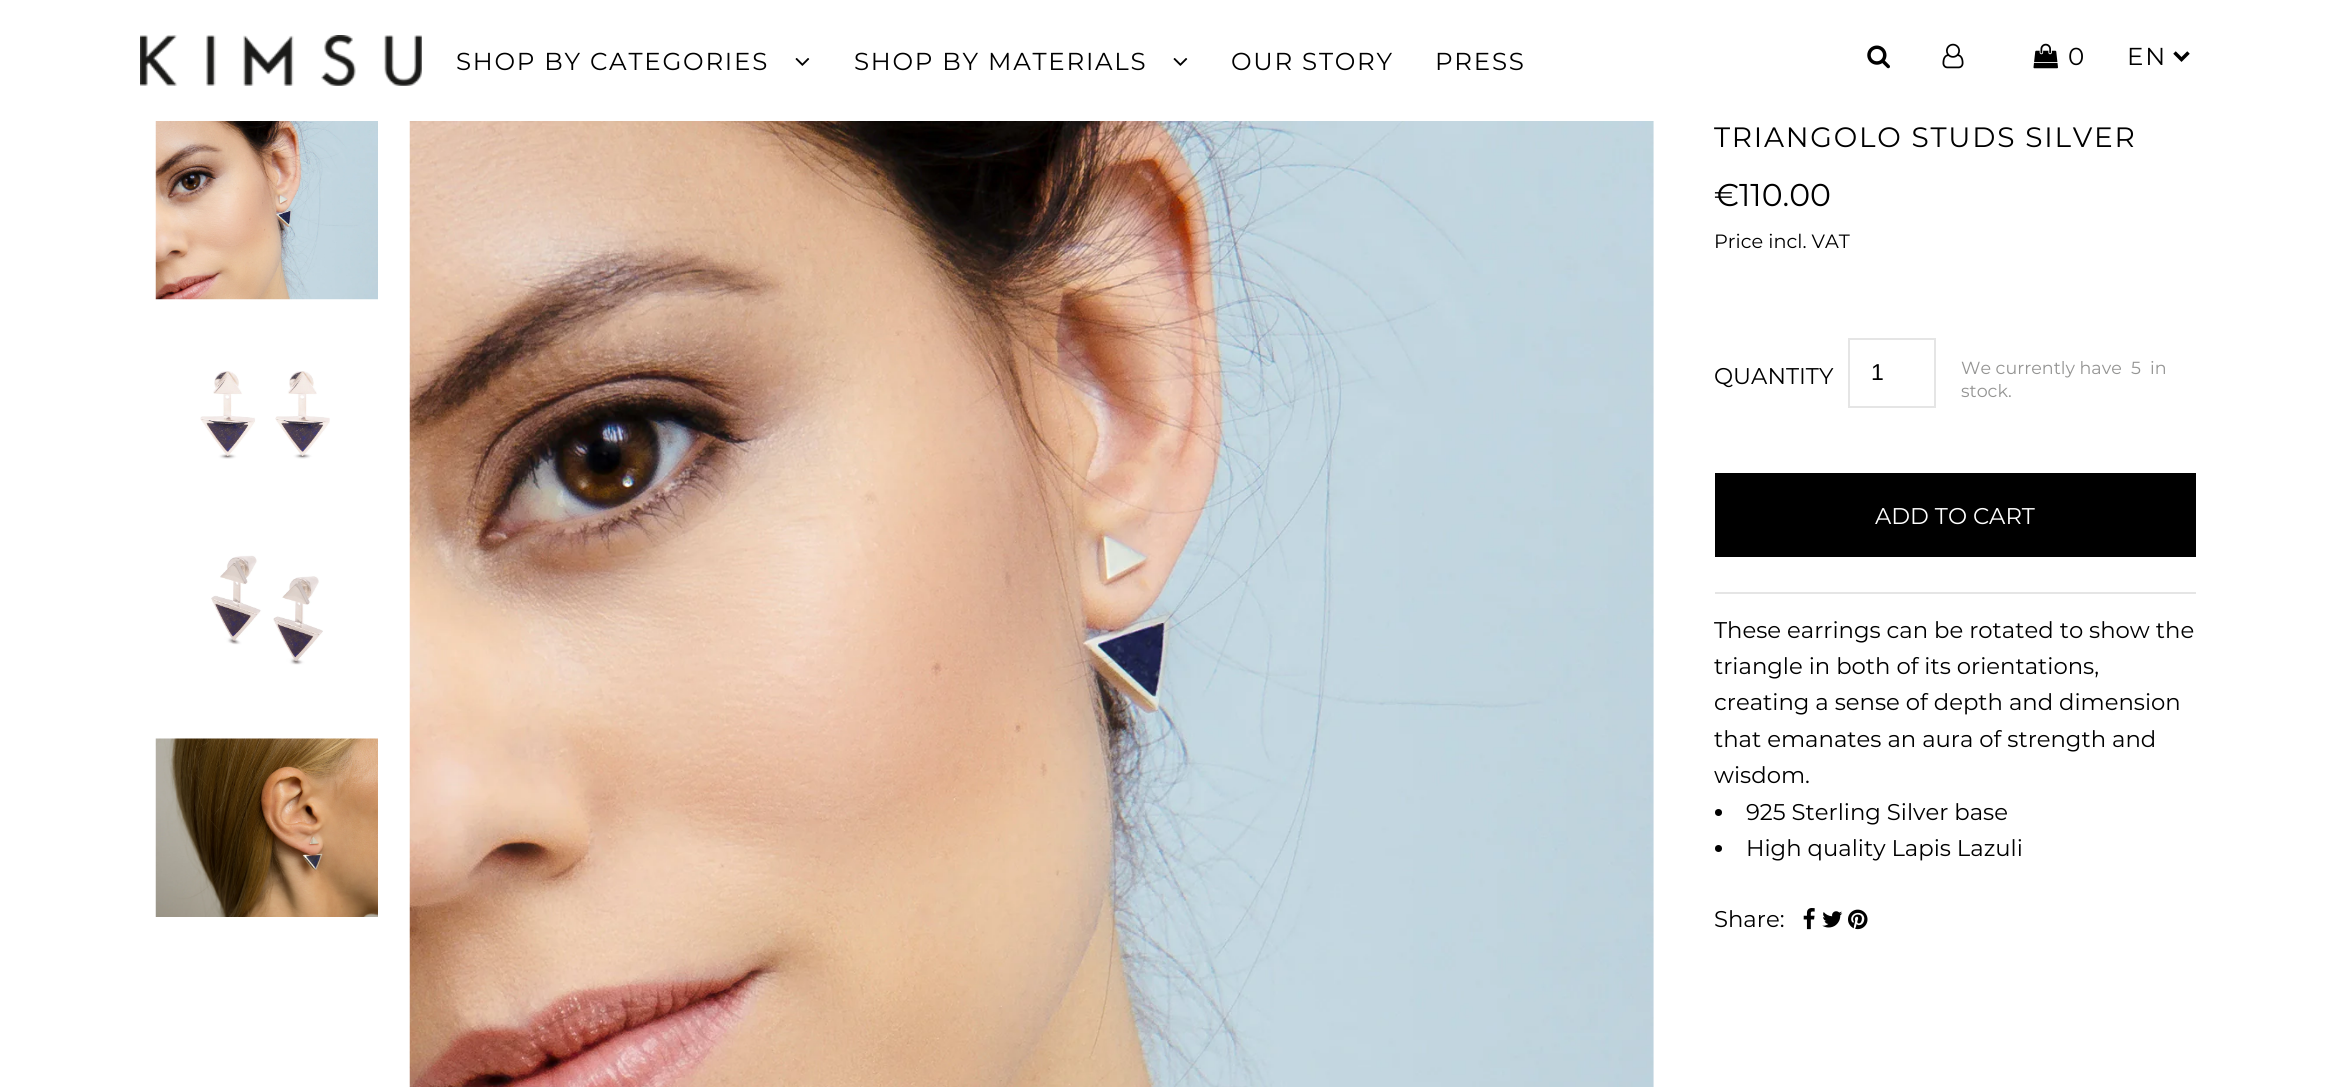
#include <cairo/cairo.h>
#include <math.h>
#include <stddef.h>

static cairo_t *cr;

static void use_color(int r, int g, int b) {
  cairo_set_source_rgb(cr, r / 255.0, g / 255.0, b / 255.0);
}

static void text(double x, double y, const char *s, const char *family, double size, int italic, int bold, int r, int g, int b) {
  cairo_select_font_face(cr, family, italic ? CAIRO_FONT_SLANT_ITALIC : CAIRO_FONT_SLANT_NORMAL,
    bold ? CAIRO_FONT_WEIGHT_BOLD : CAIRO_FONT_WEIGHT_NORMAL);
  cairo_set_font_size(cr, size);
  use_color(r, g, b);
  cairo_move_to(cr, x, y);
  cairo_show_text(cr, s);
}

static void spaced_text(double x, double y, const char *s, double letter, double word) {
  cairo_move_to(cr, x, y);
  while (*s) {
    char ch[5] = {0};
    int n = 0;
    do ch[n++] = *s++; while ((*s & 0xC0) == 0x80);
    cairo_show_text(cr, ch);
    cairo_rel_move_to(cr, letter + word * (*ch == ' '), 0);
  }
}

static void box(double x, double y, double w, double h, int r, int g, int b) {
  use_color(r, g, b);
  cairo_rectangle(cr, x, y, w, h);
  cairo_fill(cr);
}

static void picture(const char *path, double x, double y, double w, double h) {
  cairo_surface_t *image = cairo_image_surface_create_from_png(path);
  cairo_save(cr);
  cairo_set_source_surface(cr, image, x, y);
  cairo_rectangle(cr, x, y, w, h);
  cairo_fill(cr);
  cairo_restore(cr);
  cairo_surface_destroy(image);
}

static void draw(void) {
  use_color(255, 255, 255);
  cairo_paint(cr);
  picture("img_01.png", 140, 35, 282, 51);
  picture("img_02.png", 795, 58, 15, 8);
  picture("img_02.png", 1173, 58, 15, 8);
  picture("img_03.png", 1867, 45, 23, 24);
  picture("img_04.png", 1942, 43, 22, 26);
  picture("img_05.png", 2033, 43, 25, 26);
  cairo_new_path(cr);
  cairo_move_to(cr, 2174.5, 52.5);
  cairo_line_to(cr, 2181.5, 59.5);
  cairo_line_to(cr, 2188.5, 52.5);
  use_color(0, 0, 0);
  cairo_set_line_width(cr, 3.5);
  cairo_stroke(cr);
  picture("img_06.png", 155, 121, 223, 179);
  picture("img_07.png", 200, 371, 130, 88);
  picture("img_08.png", 211, 555, 112, 110);
  picture("img_09.png", 155, 738, 223, 179);
  picture("img_10.png", 409, 121, 1245, 966);
  box(1715, 592, 481, 2, 229, 229, 229);
  cairo_rectangle(cr, 1849, 339, 86, 68);
  cairo_set_line_width(cr, 2);
  cairo_stroke(cr);
  box(1715, 473, 481, 84, 0, 0, 0);
  cairo_arc(cr, 1718.5, 812.5, 3.5, 0, 2 * M_PI);
  cairo_fill(cr);
  cairo_arc(cr, 1718.5, 848.5, 3.5, 0, 2 * M_PI);
  cairo_fill(cr);
  picture("img_11.png", 1803, 908, 12, 22);
  picture("img_12.png", 1822, 911, 21, 17);
  picture("img_13.png", 1848, 909, 20, 21);
  cairo_select_font_face(cr, "Montserrat Thin", CAIRO_FONT_SLANT_NORMAL, CAIRO_FONT_WEIGHT_NORMAL);
  cairo_set_font_size(cr, 24.5);
  spaced_text(456, 70, "SHOP BY CATEGORIES", 1.75, 0);
  spaced_text(854, 70, "SHOP BY MATERIALS", 1.75, 0);
  spaced_text(1231, 70, "OUR STORY", 1.75, 0);
  spaced_text(1435, 70, "PRESS", 1.75, 0);
  spaced_text(2068, 65, "0", 1.75, 0);
  spaced_text(2127, 65, "EN", 1.75, 0);
  cairo_set_font_size(cr, 28);
  spaced_text(1714, 147, "TRIANGOLO STUDS SILVER", 1.75, 0);
  text(1714, 206, "€110.00", "Montserrat Thin", 31.5, 0, 0, 0, 0, 0);
  text(1714, 248, "Price incl. VAT", "Montserrat Thin", 19.25, 0, 0, 0, 0, 0);
  text(1714, 384, "QUANTITY", "Montserrat Thin", 22.75, 0, 0, 0, 0, 0);
  text(1871, 380, "1", "Liberation Sans", 23, 0, 0, 0, 0, 0);
  text(1961, 374, "We currently have", "Montserrat Thin", 17.5, 0, 0, 148, 148, 147);
  text(2131, 374, "5", "Montserrat Thin", 17.5, 0, 0, 148, 148, 147);
  text(2150, 374, "in", "Montserrat Thin", 17.5, 0, 0, 148, 148, 147);
  text(1961, 397, "stock.", "Montserrat Thin", 17.5, 0, 0, 148, 148, 147);
  text(1875, 524, "ADD TO CART", "Montserrat Thin", 22.75, 0, 0, 255, 255, 255);
  text(1714, 638, "These earrings can be rotated to show the", "Montserrat Thin", 22.75, 0, 0, 0, 0, 0);
  text(1714, 674, "triangle in both of its orientations,", "Montserrat Thin", 22.75, 0, 0, 0, 0, 0);
  text(1714, 710, "creating a sense of depth and dimension", "Montserrat Thin", 22.75, 0, 0, 0, 0, 0);
  text(1714, 747, "that emanates an aura of strength and", "Montserrat Thin", 22.75, 0, 0, 0, 0, 0);
  text(1714, 783, "wisdom.", "Montserrat Thin", 22.75, 0, 0, 0, 0, 0);
  text(1746, 820, "925 Sterling Silver base", "Montserrat Thin", 22.75, 0, 0, 0, 0, 0);
  text(1746, 856, "High quality Lapis Lazuli", "Montserrat Thin", 22.75, 0, 0, 0, 0, 0);
  text(1714, 927, "Share:", "Montserrat Thin", 22.75, 0, 0, 0, 0, 0);
}

int main(void) {
  cairo_surface_t *surface = cairo_image_surface_create(CAIRO_FORMAT_RGB24, 2333, 1087);
  cr = cairo_create(surface);
  cairo_font_options_t *options = cairo_font_options_create();
  cairo_font_options_set_hint_metrics(options, CAIRO_HINT_METRICS_OFF);
  cairo_font_options_set_hint_style(options, CAIRO_HINT_STYLE_NONE);
  cairo_set_font_options(cr, options);
  cairo_set_miter_limit(cr, 4);
  draw();
  cairo_surface_write_to_png(surface, "out.png");
  cairo_font_options_destroy(options);
  cairo_destroy(cr);
  cairo_surface_destroy(surface);
  return 0;
}
